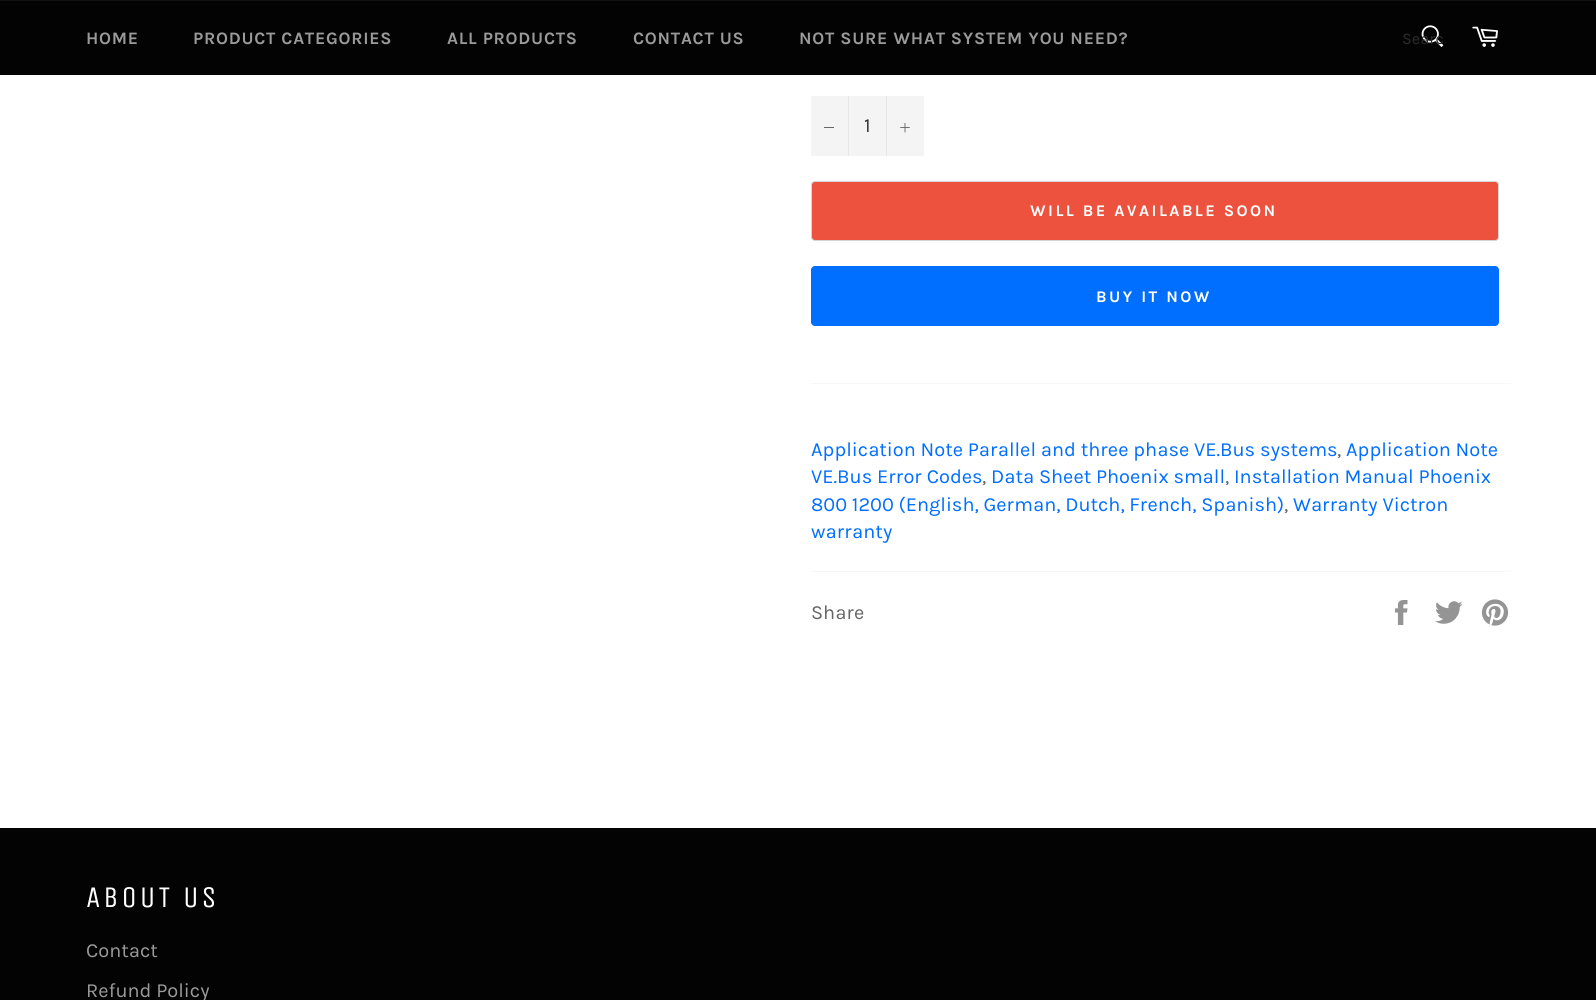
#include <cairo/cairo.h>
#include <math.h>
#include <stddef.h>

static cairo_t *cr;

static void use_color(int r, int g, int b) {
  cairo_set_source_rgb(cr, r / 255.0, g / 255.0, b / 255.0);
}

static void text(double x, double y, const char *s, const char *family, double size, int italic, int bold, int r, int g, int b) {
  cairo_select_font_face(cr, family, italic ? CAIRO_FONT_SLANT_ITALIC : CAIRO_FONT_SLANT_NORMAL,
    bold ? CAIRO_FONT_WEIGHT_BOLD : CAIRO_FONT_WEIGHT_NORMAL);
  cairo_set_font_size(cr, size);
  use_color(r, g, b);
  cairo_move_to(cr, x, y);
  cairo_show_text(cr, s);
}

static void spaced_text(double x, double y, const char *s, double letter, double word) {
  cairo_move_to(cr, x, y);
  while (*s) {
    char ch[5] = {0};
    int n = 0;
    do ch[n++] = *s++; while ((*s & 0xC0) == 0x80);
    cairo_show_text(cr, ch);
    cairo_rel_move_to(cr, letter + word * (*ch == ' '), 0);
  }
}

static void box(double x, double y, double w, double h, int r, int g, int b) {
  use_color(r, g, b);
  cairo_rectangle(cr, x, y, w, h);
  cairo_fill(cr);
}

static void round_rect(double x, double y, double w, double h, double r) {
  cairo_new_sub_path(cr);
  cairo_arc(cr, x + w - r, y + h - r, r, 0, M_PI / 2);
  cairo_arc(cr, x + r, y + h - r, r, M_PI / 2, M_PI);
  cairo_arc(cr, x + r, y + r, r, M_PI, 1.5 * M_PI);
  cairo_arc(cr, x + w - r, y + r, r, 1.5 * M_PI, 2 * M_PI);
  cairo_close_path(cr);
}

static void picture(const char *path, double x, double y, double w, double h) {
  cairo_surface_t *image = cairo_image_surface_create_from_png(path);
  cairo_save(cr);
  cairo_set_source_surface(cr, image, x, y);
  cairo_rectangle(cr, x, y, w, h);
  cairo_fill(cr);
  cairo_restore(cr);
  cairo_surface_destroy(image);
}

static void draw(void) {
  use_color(255, 255, 255);
  cairo_paint(cr);
  box(0, 1, 1596, 74, 3, 3, 3);
  box(0, 0, 1596, 1, 16, 16, 16);
  picture("img_01.png", 1421, 25, 23, 22);
  picture("img_02.png", 1472, 26, 26, 21);
  box(811, 96, 113, 60, 244, 244, 244);
  box(848, 96, 1, 60, 231, 231, 231);
  box(824, 127, 10, 1, 102, 102, 102);
  box(886, 96, 1, 60, 231, 231, 231);
  picture("img_03.png", 900, 123, 10, 10);
  use_color(236, 82, 62);
  round_rect(811.5, 181.5, 687, 59, 3.5);
  cairo_fill_preserve(cr);
  use_color(213, 213, 213);
  cairo_set_line_width(cr, 1);
  cairo_stroke(cr);
  use_color(0, 110, 255);
  round_rect(811, 266, 688, 60, 4);
  cairo_fill(cr);
  box(811, 383, 700, 1, 247, 247, 247);
  box(811, 571, 700, 1, 247, 247, 247);
  picture("img_04.png", 1395, 600, 13, 25);
  picture("img_05.png", 1435, 601, 28, 23);
  picture("img_06.png", 1481, 599, 28, 27);
  box(0, 828, 1596, 172, 3, 3, 3);
  cairo_select_font_face(cr, "Karla", CAIRO_FONT_SLANT_NORMAL, CAIRO_FONT_WEIGHT_BOLD);
  cairo_set_font_size(cr, 17.5);
  use_color(154, 154, 154);
  spaced_text(86, 44, "HOME", 0.75, 0);
  spaced_text(193, 44, "PRODUCT CATEGORIES", 0.75, 0);
  spaced_text(447, 44, "ALL PRODUCTS", 0.75, 0);
  spaced_text(633, 44, "CONTACT US", 0.75, 0);
  spaced_text(799, 44, "NOT SURE WHAT SYSTEM YOU NEED?", 0.75, 0);
  text(1402, 44, "Searc", "Karla", 16.25, 0, 0, 44, 44, 44);
  text(864, 132, "1", "Karla", 20, 0, 0, 51, 51, 51);
  cairo_select_font_face(cr, "Karla", CAIRO_FONT_SLANT_NORMAL, CAIRO_FONT_WEIGHT_BOLD);
  cairo_set_font_size(cr, 16.25);
  use_color(255, 255, 255);
  spaced_text(1030, 216, "WILL BE AVAILABLE SOON", 2.4, 0);
  spaced_text(1096, 302, "BUY IT NOW", 2.4, 0);
  text(811, 456, "Application Note Parallel and three phase VE.Bus systems", "Karla", 20, 0, 0, 0, 110, 255);
  text(1337, 456, ",", "Karla", 20, 0, 0, 102, 102, 102);
  text(1346, 456, "Application Note", "Karla", 20, 0, 0, 0, 110, 255);
  text(811, 483, "VE.Bus Error Codes", "Karla", 20, 0, 0, 0, 110, 255);
  text(982, 483, ",", "Karla", 20, 0, 0, 102, 102, 102);
  text(991, 483, "Data Sheet Phoenix small", "Karla", 20, 0, 0, 0, 110, 255);
  text(1225, 483, ",", "Karla", 20, 0, 0, 102, 102, 102);
  text(1234, 483, "Installation Manual Phoenix", "Karla", 20, 0, 0, 0, 110, 255);
  text(811, 511, "800 1200 (English, German, Dutch, French, Spanish)", "Karla", 20, 0, 0, 0, 110, 255);
  text(1284, 511, ",", "Karla", 20, 0, 0, 102, 102, 102);
  text(1293, 511, "Warranty Victron", "Karla", 20, 0, 0, 0, 110, 255);
  text(811, 538, "warranty", "Karla", 20, 0, 0, 0, 110, 255);
  text(811, 619, "Share", "Karla", 20, 0, 0, 102, 102, 102);
  cairo_select_font_face(cr, "Unica One", CAIRO_FONT_SLANT_NORMAL, CAIRO_FONT_WEIGHT_NORMAL);
  cairo_set_font_size(cr, 30);
  use_color(255, 255, 255);
  spaced_text(86, 907, "ABOUT US", 3, 0);
  text(86, 957, "Contact", "Karla", 20, 0, 0, 154, 154, 154);
  text(86, 997, "Refund Policy", "Karla", 20, 0, 0, 154, 154, 154);
}

int main(void) {
  cairo_surface_t *surface = cairo_image_surface_create(CAIRO_FORMAT_RGB24, 1596, 1000);
  cr = cairo_create(surface);
  cairo_font_options_t *options = cairo_font_options_create();
  cairo_font_options_set_hint_metrics(options, CAIRO_HINT_METRICS_OFF);
  cairo_font_options_set_hint_style(options, CAIRO_HINT_STYLE_NONE);
  cairo_set_font_options(cr, options);
  cairo_set_miter_limit(cr, 4);
  draw();
  cairo_surface_write_to_png(surface, "out.png");
  cairo_font_options_destroy(options);
  cairo_destroy(cr);
  cairo_surface_destroy(surface);
  return 0;
}
